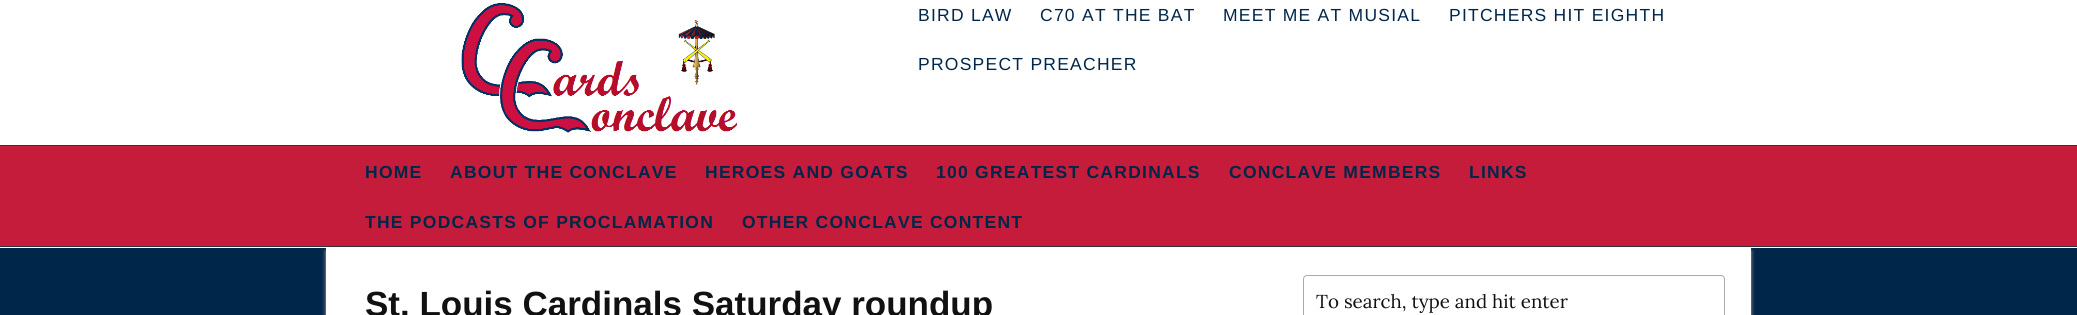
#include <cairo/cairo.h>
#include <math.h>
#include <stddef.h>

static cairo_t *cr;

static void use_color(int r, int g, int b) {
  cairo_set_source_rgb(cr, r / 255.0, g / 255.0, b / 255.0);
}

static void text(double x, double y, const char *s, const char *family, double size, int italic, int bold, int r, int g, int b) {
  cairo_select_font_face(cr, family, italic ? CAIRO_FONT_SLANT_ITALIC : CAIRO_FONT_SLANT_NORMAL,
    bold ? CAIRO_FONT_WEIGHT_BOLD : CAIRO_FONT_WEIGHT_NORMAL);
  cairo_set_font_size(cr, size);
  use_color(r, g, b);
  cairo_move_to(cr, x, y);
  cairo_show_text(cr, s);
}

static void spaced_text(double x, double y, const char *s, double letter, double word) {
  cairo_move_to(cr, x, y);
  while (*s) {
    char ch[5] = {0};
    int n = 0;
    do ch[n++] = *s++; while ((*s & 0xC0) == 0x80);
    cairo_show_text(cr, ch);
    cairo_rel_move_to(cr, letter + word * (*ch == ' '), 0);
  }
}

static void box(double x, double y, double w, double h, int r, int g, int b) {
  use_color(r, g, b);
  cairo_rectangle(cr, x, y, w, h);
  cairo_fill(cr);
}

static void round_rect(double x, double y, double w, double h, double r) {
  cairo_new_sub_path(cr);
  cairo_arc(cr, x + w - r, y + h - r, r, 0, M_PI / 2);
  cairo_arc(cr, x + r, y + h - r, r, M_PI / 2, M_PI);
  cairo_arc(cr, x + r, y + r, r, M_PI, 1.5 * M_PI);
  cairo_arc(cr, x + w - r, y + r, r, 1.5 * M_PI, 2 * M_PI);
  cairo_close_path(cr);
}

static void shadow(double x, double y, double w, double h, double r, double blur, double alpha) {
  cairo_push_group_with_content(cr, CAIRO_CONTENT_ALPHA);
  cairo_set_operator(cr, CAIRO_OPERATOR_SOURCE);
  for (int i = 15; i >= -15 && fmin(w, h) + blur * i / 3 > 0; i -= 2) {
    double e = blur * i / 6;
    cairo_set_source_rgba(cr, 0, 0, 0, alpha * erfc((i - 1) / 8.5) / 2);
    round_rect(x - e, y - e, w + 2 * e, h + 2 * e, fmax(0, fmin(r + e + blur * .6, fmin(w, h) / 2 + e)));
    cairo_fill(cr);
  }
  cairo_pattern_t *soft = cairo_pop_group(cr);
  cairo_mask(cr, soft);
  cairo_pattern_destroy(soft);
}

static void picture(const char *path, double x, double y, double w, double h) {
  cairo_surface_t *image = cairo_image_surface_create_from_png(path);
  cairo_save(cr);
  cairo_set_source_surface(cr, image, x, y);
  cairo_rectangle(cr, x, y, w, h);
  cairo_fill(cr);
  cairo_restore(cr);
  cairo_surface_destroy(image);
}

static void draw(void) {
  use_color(255, 255, 255);
  cairo_paint(cr);
  picture("img_01.png", 461, 3, 277, 130);
  box(0, 146, 2077, 100, 196, 28, 58);
  box(0, 145, 2077, 1, 51, 51, 51);
  box(0, 246, 2077, 1, 51, 51, 51);
  box(0, 248, 2077, 67, 0, 38, 73);
  use_color(187, 187, 187);
  shadow(326, 251, 1425, 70, 0, 2, 1);
  box(326, 248, 1425, 67, 255, 255, 255);
  round_rect(1303.5, 275.5, 421, 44, 3.5);
  use_color(170, 170, 170);
  cairo_set_line_width(cr, 1);
  cairo_stroke(cr);
  cairo_select_font_face(cr, "Liberation Sans", CAIRO_FONT_SLANT_NORMAL, CAIRO_FONT_WEIGHT_NORMAL);
  cairo_set_font_size(cr, 17.5);
  use_color(0, 38, 73);
  spaced_text(918, 21, "BIRD LAW", 1.25, 0);
  spaced_text(1040, 21, "C70 AT THE BAT", 1.25, 0);
  spaced_text(1223, 21, "MEET ME AT MUSIAL", 1.25, 0);
  spaced_text(1449, 21, "PITCHERS HIT EIGHTH", 1.25, 0);
  spaced_text(918, 70, "PROSPECT PREACHER", 1.25, 0);
  cairo_select_font_face(cr, "Liberation Sans", CAIRO_FONT_SLANT_NORMAL, CAIRO_FONT_WEIGHT_BOLD);
  spaced_text(365, 178, "HOME", 1.25, 0);
  spaced_text(450, 178, "ABOUT THE CONCLAVE", 1.25, 0);
  spaced_text(705, 178, "HEROES AND GOATS", 1.25, 0);
  spaced_text(936, 178, "100 GREATEST CARDINALS", 1.25, 0);
  spaced_text(1229, 178, "CONCLAVE MEMBERS", 1.25, 0);
  spaced_text(1469, 178, "LINKS", 1.25, 0);
  spaced_text(365, 228, "THE PODCASTS OF PROCLAMATION", 1.25, 0);
  spaced_text(742, 228, "OTHER CONCLAVE CONTENT", 1.25, 0);
  text(365, 316, "St. Louis Cardinals Saturday roundup", "Liberation Sans", 35, 0, 1, 17, 17, 17);
  text(1316, 308, "To search, type and hit enter", "Lora", 18.75, 0, 0, 17, 17, 17);
}

int main(void) {
  cairo_surface_t *surface = cairo_image_surface_create(CAIRO_FORMAT_RGB24, 2077, 315);
  cr = cairo_create(surface);
  cairo_font_options_t *options = cairo_font_options_create();
  cairo_font_options_set_hint_metrics(options, CAIRO_HINT_METRICS_OFF);
  cairo_font_options_set_hint_style(options, CAIRO_HINT_STYLE_NONE);
  cairo_set_font_options(cr, options);
  cairo_set_miter_limit(cr, 4);
  draw();
  cairo_surface_write_to_png(surface, "out.png");
  cairo_font_options_destroy(options);
  cairo_destroy(cr);
  cairo_surface_destroy(surface);
  return 0;
}
